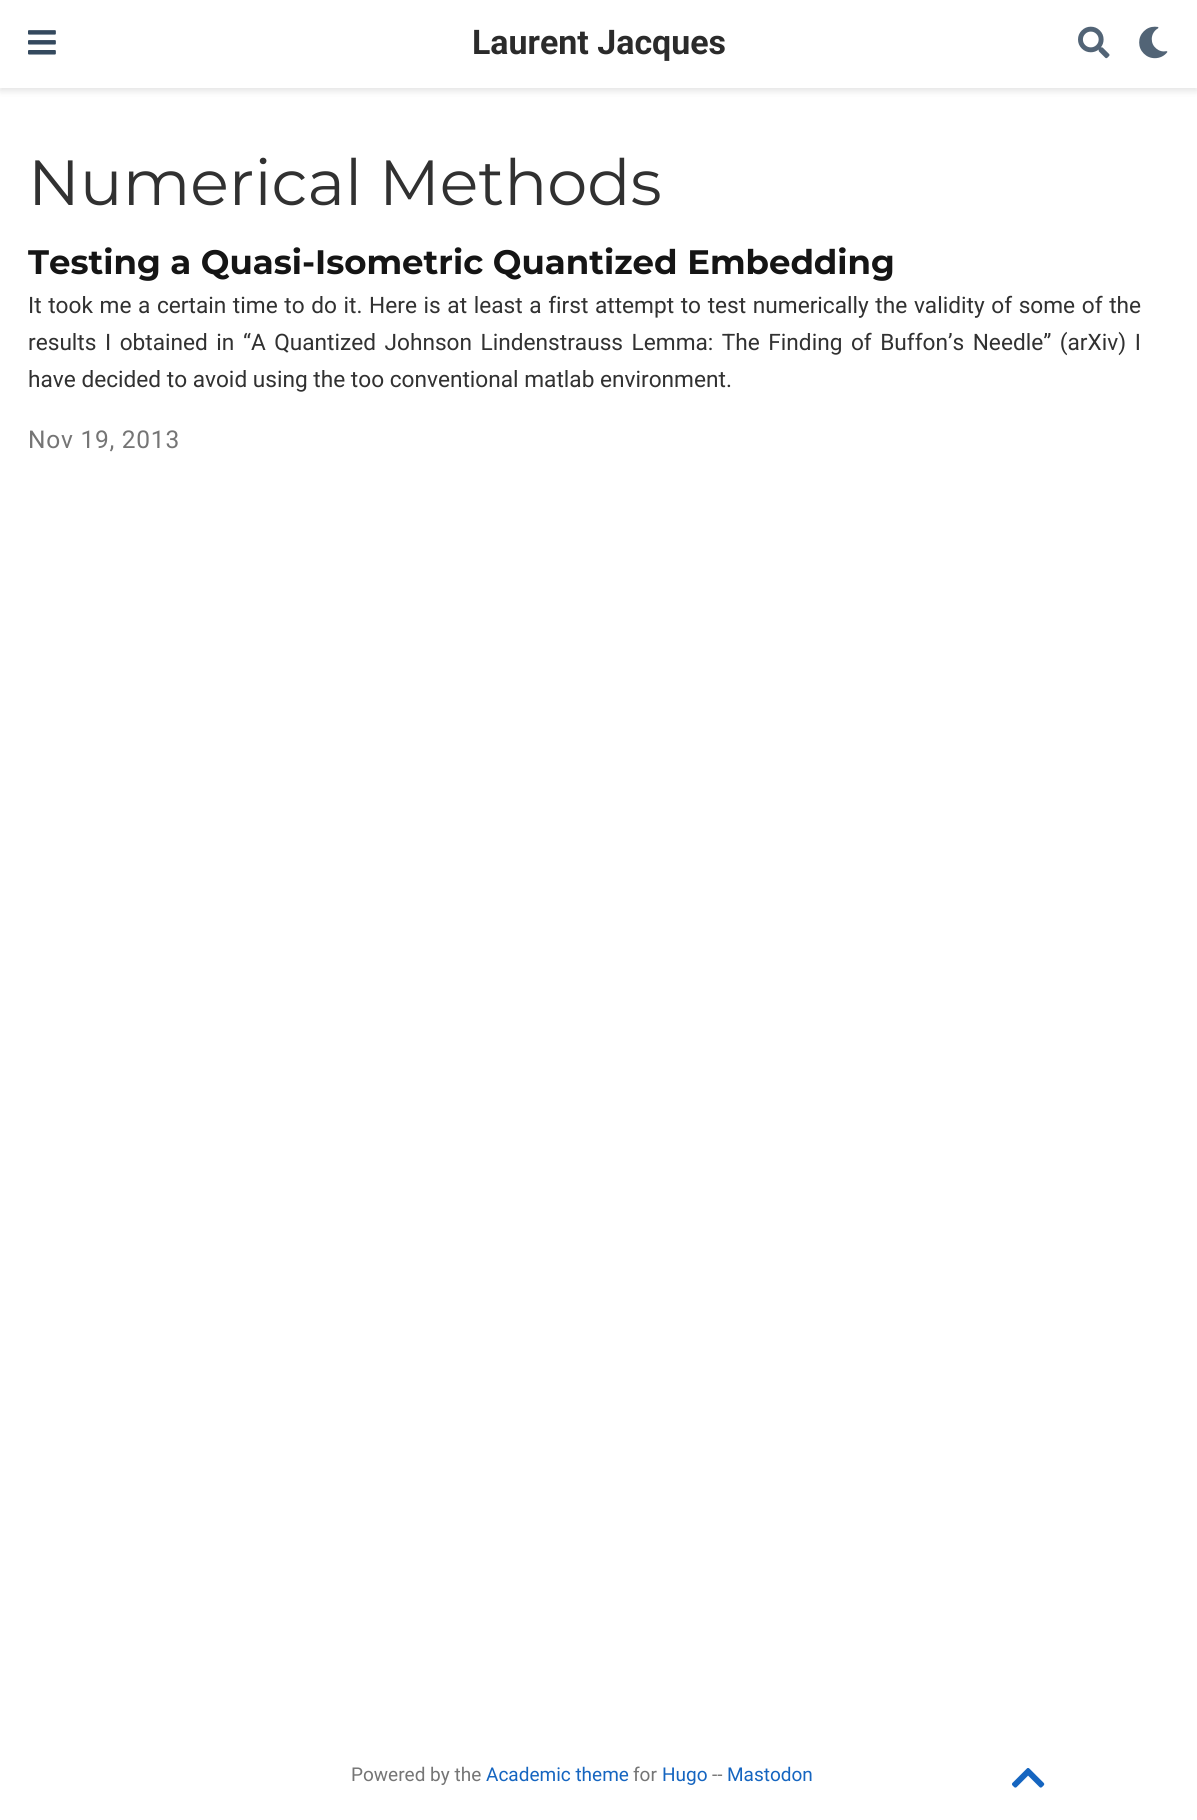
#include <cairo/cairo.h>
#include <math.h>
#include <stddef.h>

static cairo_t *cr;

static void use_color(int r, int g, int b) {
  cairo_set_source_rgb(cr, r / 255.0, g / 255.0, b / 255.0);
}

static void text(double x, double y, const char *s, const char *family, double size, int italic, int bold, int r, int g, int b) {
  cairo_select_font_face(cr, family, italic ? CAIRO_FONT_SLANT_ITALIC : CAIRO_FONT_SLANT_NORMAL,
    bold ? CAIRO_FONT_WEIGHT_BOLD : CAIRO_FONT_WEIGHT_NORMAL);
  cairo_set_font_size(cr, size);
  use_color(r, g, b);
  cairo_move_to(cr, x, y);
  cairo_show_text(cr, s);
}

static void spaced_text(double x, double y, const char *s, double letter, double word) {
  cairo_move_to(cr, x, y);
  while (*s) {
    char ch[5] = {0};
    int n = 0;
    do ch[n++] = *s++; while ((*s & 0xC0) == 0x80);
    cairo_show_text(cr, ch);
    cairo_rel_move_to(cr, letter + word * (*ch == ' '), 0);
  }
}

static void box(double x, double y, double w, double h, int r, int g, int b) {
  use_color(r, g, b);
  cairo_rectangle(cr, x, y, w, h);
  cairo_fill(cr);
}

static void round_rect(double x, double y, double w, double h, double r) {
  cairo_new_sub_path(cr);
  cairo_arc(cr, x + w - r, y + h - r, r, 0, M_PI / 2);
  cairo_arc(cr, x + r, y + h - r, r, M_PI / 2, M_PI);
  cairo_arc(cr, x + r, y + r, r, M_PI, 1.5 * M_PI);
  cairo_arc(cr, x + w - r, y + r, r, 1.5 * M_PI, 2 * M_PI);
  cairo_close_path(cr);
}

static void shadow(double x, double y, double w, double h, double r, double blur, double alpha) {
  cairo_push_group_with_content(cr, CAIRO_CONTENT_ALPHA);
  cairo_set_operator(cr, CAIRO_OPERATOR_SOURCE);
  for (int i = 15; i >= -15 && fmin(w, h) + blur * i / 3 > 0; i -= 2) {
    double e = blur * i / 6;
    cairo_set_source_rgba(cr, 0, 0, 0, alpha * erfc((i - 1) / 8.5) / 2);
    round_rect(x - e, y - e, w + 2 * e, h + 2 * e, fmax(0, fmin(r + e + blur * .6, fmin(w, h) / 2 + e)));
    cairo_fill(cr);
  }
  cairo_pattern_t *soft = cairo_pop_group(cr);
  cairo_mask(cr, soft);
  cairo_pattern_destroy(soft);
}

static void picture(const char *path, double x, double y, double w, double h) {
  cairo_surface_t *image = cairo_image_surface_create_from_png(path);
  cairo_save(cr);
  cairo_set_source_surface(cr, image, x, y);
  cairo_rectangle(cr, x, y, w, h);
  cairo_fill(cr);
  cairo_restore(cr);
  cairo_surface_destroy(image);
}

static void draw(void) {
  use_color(255, 255, 255);
  cairo_paint(cr);
  use_color(0, 0, 0);
  shadow(0, 4, 1197, 87, 0, 3.5, 0.11);
  box(0, 0, 1197, 88, 255, 255, 255);
  picture("img_01.png", 28, 30, 28, 25);
  picture("img_02.png", 1078, 26, 32, 33);
  picture("img_03.png", 1139, 26, 29, 33);
  picture("img_04.png", 1012, 1768, 33, 20);
  text(472, 54, "Laurent Jacques", "Roboto", 33.95, 0, 1, 43, 43, 43);
  text(28, 205, "Numerical Methods", "Montserrat", 63.75, 0, 0, 49, 49, 49);
  text(28, 274, "Testing a Quasi-Isometric Quantized Embedding", "Montserrat", 33.95, 0, 1, 21, 21, 21);
  cairo_select_font_face(cr, "Roboto", CAIRO_FONT_SLANT_NORMAL, CAIRO_FONT_WEIGHT_NORMAL);
  cairo_set_font_size(cr, 22.65);
  use_color(49, 49, 49);
  spaced_text(28, 313, "It took me a certain time to do it. Here is at least a first attempt to test numerically the validity of some of the", 0, 1);
  spaced_text(28, 350, "results I obtained in “A Quantized Johnson Lindenstrauss Lemma: The Finding of Buffon’s Needle” (arXiv) I", 0, 2.9);
  text(28, 387, "have decided to avoid using the too conventional matlab environment.", "Roboto", 22.65, 0, 0, 49, 49, 49);
  cairo_set_font_size(cr, 24.5);
  use_color(117, 117, 117);
  spaced_text(28, 448, "Nov 19, 2013", 0.75, 0);
  text(351, 1781, "Powered by the", "Roboto", 19, 0, 0, 117, 117, 117);
  text(486, 1781, "Academic theme", "Roboto", 19, 0, 0, 21, 101, 192);
  text(633, 1781, "for", "Roboto", 19, 0, 0, 117, 117, 117);
  text(662, 1781, "Hugo", "Roboto", 19, 0, 0, 21, 101, 192);
  text(712, 1781, "--", "Roboto", 19, 0, 0, 117, 117, 117);
  text(727, 1781, "Mastodon", "Roboto", 19, 0, 0, 21, 101, 192);
}

int main(void) {
  cairo_surface_t *surface = cairo_image_surface_create(CAIRO_FORMAT_RGB24, 1197, 1820);
  cr = cairo_create(surface);
  cairo_font_options_t *options = cairo_font_options_create();
  cairo_font_options_set_hint_metrics(options, CAIRO_HINT_METRICS_OFF);
  cairo_font_options_set_hint_style(options, CAIRO_HINT_STYLE_NONE);
  cairo_set_font_options(cr, options);
  cairo_set_miter_limit(cr, 4);
  draw();
  cairo_surface_write_to_png(surface, "out.png");
  cairo_font_options_destroy(options);
  cairo_destroy(cr);
  cairo_surface_destroy(surface);
  return 0;
}
